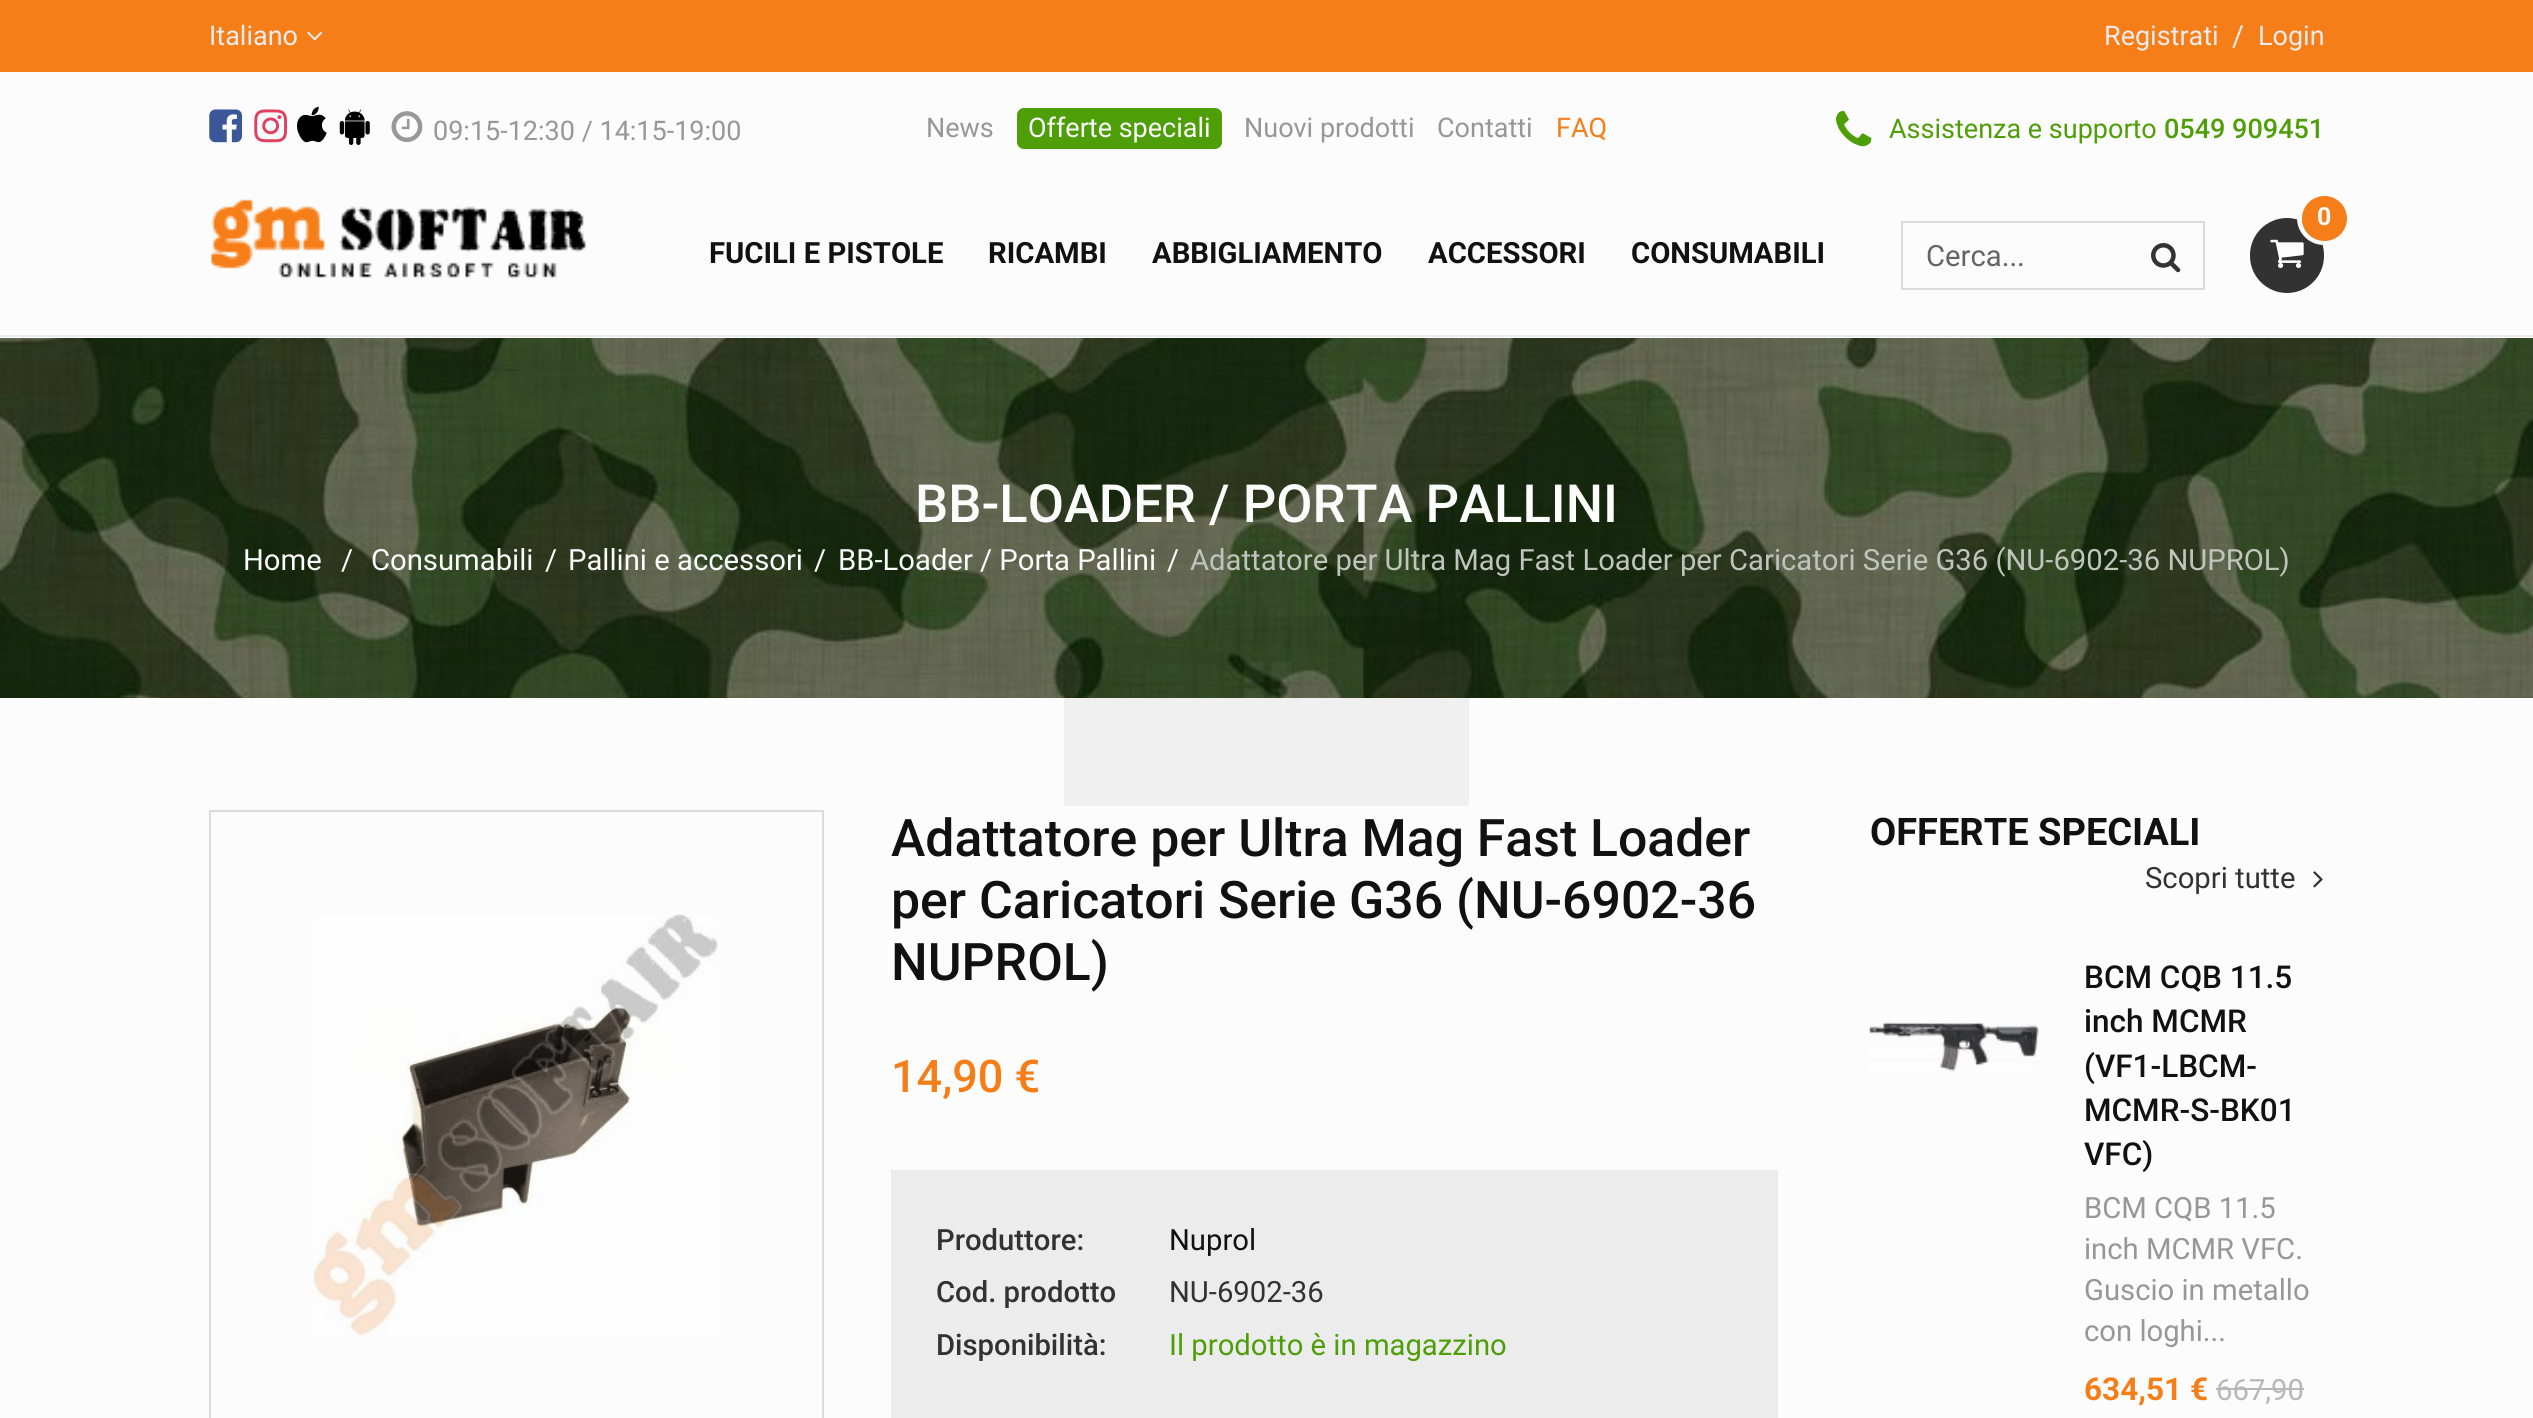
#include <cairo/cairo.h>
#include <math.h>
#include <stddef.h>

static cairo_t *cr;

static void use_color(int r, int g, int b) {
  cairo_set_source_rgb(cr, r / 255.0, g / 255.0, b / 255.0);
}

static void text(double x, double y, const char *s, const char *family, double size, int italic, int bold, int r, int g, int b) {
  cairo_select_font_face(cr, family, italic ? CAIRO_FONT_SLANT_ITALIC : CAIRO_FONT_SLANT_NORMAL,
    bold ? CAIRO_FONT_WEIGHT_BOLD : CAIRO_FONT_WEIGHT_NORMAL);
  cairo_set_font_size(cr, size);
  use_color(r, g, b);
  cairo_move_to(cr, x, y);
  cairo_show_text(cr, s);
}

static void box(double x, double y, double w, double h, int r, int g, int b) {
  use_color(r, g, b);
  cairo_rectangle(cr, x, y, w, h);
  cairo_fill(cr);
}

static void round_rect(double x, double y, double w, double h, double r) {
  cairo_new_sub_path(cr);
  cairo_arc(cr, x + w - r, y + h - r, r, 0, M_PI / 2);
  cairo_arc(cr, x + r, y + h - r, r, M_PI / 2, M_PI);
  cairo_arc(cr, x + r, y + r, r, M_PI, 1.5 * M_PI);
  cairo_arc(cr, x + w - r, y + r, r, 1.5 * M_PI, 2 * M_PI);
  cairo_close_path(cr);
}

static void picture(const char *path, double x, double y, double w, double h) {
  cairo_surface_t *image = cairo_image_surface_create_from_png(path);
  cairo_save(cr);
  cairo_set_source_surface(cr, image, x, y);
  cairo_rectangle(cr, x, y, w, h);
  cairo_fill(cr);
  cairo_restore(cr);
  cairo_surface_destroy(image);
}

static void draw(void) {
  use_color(252, 252, 252);
  cairo_paint(cr);
  box(0, 0, 2533, 72, 246, 126, 25);
  picture("img_01.png", 307, 31, 16, 10);
  box(0, 335, 2533, 2, 236, 236, 236);
  picture("img_02.png", 209, 109, 34, 34);
  picture("img_03.png", 254, 109, 34, 34);
  picture("img_04.png", 297, 106, 30, 37);
  picture("img_05.png", 339, 109, 31, 36);
  picture("img_06.png", 391, 111, 32, 32);
  use_color(78, 158, 8);
  round_rect(1017, 108, 205, 41, 7);
  cairo_fill(cr);
  picture("img_07.png", 1836, 110, 36, 37);
  picture("img_08.png", 211, 199, 375, 79);
  use_color(50, 50, 50);
  round_rect(2250, 218, 74, 75, 37);
  cairo_fill(cr);
  picture("img_09.png", 2270, 239, 34, 30);
  cairo_arc(cr, 2324, 218, 24.5, 0, 2 * M_PI);
  use_color(252, 252, 252);
  cairo_set_line_width(cr, 5);
  cairo_stroke(cr);
  use_color(246, 126, 25);
  cairo_arc(cr, 2324.5, 218.5, 22.5, 0, 2 * M_PI);
  cairo_fill(cr);
  cairo_rectangle(cr, 1902, 222, 302, 67);
  use_color(219, 219, 219);
  cairo_set_line_width(cr, 2);
  cairo_stroke(cr);
  picture("img_10.png", 2151, 243, 30, 30);
  picture("img_11.png", 0, 338, 2533, 360);
  cairo_rectangle(cr, 210, 811, 613, 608);
  cairo_stroke(cr);
  picture("img_12.png", 313, 914, 405, 422);
  box(891, 1170, 887, 248, 236, 236, 236);
  picture("img_13.png", 2313, 871, 10, 17);
  picture("img_14.png", 1869, 1022, 170, 54);
  box(2216, 1388, 88, 2, 184, 184, 184);
  cairo_set_source_rgba(cr, 0, 0, 0, 0.05);
  cairo_rectangle(cr, 1064, 617, 405, 189);
  cairo_fill(cr);
  picture("img_15.png", 1244, 661, 48, 37);
  text(209, 45, "Italiano", "Roboto", 27, 0, 0, 236, 236, 236);
  text(2104, 45, "Registrati", "Roboto", 27, 0, 0, 236, 236, 236);
  text(2232, 46, "/", "Roboto", 29.25, 0, 0, 236, 236, 236);
  text(2258, 45, "Login", "Roboto", 27, 0, 0, 236, 236, 236);
  text(433, 140, "09:15-12:30 / 14:15-19:00", "Roboto", 27, 0, 0, 151, 151, 151);
  text(926, 137, "News", "Roboto", 27, 0, 0, 151, 151, 151);
  text(1028, 137, "Offerte speciali", "Roboto", 27, 0, 0, 252, 252, 252);
  text(1244, 137, "Nuovi prodotti", "Roboto", 27, 0, 0, 151, 151, 151);
  text(1437, 137, "Contatti", "Roboto", 27, 0, 0, 151, 151, 151);
  text(1556, 137, "FAQ", "Roboto", 27, 0, 0, 246, 126, 25);
  text(1889, 138, "Assistenza e supporto", "Roboto", 27, 0, 0, 78, 158, 8);
  text(2164, 138, "0549 909451", "Roboto Medium", 27, 0, 0, 78, 158, 8);
  text(709, 263, "FUCILI E PISTOLE", "Roboto", 29.25, 0, 1, 17, 17, 17);
  text(988, 263, "RICAMBI", "Roboto", 29.25, 0, 1, 17, 17, 17);
  text(1152, 263, "ABBIGLIAMENTO", "Roboto", 29.25, 0, 1, 17, 17, 17);
  text(1428, 263, "ACCESSORI", "Roboto", 29.25, 0, 1, 17, 17, 17);
  text(1631, 263, "CONSUMABILI", "Roboto", 29.25, 0, 1, 17, 17, 17);
  text(2317, 225, "0", "Roboto", 25, 0, 1, 252, 252, 252);
  text(1926, 266, "Cerca...", "Roboto", 29.25, 0, 0, 101, 101, 101);
  text(915, 522, "BB-LOADER / PORTA PALLINI", "Roboto Medium", 52.6, 0, 0, 252, 252, 252);
  text(243, 570, "Home", "Roboto", 29.25, 0, 0, 252, 252, 252);
  text(341, 570, "/", "Roboto", 29.25, 0, 0, 252, 252, 252);
  text(371, 570, "Consumabili", "Roboto", 29.25, 0, 0, 252, 252, 252);
  text(545, 570, "/", "Roboto", 29.25, 0, 0, 252, 252, 252);
  text(568, 570, "Pallini e accessori", "Roboto", 29.25, 0, 0, 252, 252, 252);
  text(814, 570, "/", "Roboto", 29.25, 0, 0, 252, 252, 252);
  text(838, 570, "BB-Loader / Porta Pallini", "Roboto", 29.25, 0, 0, 252, 252, 252);
  text(1167, 570, "/", "Roboto", 29.25, 0, 0, 252, 252, 252);
  text(1190, 570, "Adattatore per Ultra Mag Fast Loader per Caricatori Serie G36 (NU-6902-36 NUPROL)", "Roboto", 29.25, 0, 0, 192, 196, 188);
  text(891, 856, "Adattatore per Ultra Mag Fast Loader", "Roboto Medium", 51.75, 0, 0, 17, 17, 17);
  text(891, 918, "per Caricatori Serie G36 (NU-6902-36", "Roboto Medium", 51.75, 0, 0, 17, 17, 17);
  text(891, 980, "NUPROL)", "Roboto Medium", 51.75, 0, 0, 17, 17, 17);
  text(891, 1092, "14,90 €", "Roboto Medium", 45, 0, 0, 246, 126, 25);
  text(936, 1250, "Produttore:", "Roboto Medium", 29.25, 0, 0, 50, 50, 50);
  text(1169, 1250, "Nuprol", "Roboto", 29.25, 0, 0, 17, 17, 17);
  text(936, 1302, "Cod. prodotto", "Roboto Medium", 29.25, 0, 0, 50, 50, 50);
  text(1169, 1302, "NU-6902-36", "Roboto", 29.25, 0, 0, 50, 50, 50);
  text(936, 1355, "Disponibilità:", "Roboto Medium", 29.25, 0, 0, 50, 50, 50);
  text(1169, 1355, "Il prodotto è in magazzino", "Roboto", 29.25, 0, 0, 78, 158, 8);
  text(1870, 845, "OFFERTE SPECIALI", "Roboto", 38, 0, 1, 17, 17, 17);
  text(2145, 888, "Scopri tutte", "Roboto", 29.25, 0, 0, 50, 50, 50);
  text(2084, 988, "BCM CQB 11.5", "Roboto Medium", 31.5, 0, 0, 17, 17, 17);
  text(2084, 1032, "inch MCMR", "Roboto Medium", 31.5, 0, 0, 17, 17, 17);
  text(2084, 1077, "(VF1-LBCM-", "Roboto Medium", 31.5, 0, 0, 17, 17, 17);
  text(2084, 1121, "MCMR-S-BK01", "Roboto Medium", 31.5, 0, 0, 17, 17, 17);
  text(2084, 1165, "VFC)", "Roboto Medium", 31.5, 0, 0, 17, 17, 17);
  text(2084, 1218, "BCM CQB 11.5", "Roboto", 29.25, 0, 0, 151, 151, 151);
  text(2084, 1259, "inch MCMR VFC.", "Roboto", 29.25, 0, 0, 151, 151, 151);
  text(2084, 1300, "Guscio in metallo", "Roboto", 29.25, 0, 0, 151, 151, 151);
  text(2084, 1341, "con loghi...", "Roboto", 29.25, 0, 0, 151, 151, 151);
  text(2084, 1400, "634,51 €", "Roboto", 31.5, 0, 1, 246, 126, 25);
  text(2216, 1400, "667,90", "Roboto", 29.25, 0, 0, 184, 184, 184);
}

int main(void) {
  cairo_surface_t *surface = cairo_image_surface_create(CAIRO_FORMAT_RGB24, 2533, 1418);
  cr = cairo_create(surface);
  cairo_font_options_t *options = cairo_font_options_create();
  cairo_font_options_set_hint_metrics(options, CAIRO_HINT_METRICS_OFF);
  cairo_font_options_set_hint_style(options, CAIRO_HINT_STYLE_NONE);
  cairo_set_font_options(cr, options);
  cairo_set_miter_limit(cr, 4);
  draw();
  cairo_surface_write_to_png(surface, "out.png");
  cairo_font_options_destroy(options);
  cairo_destroy(cr);
  cairo_surface_destroy(surface);
  return 0;
}
